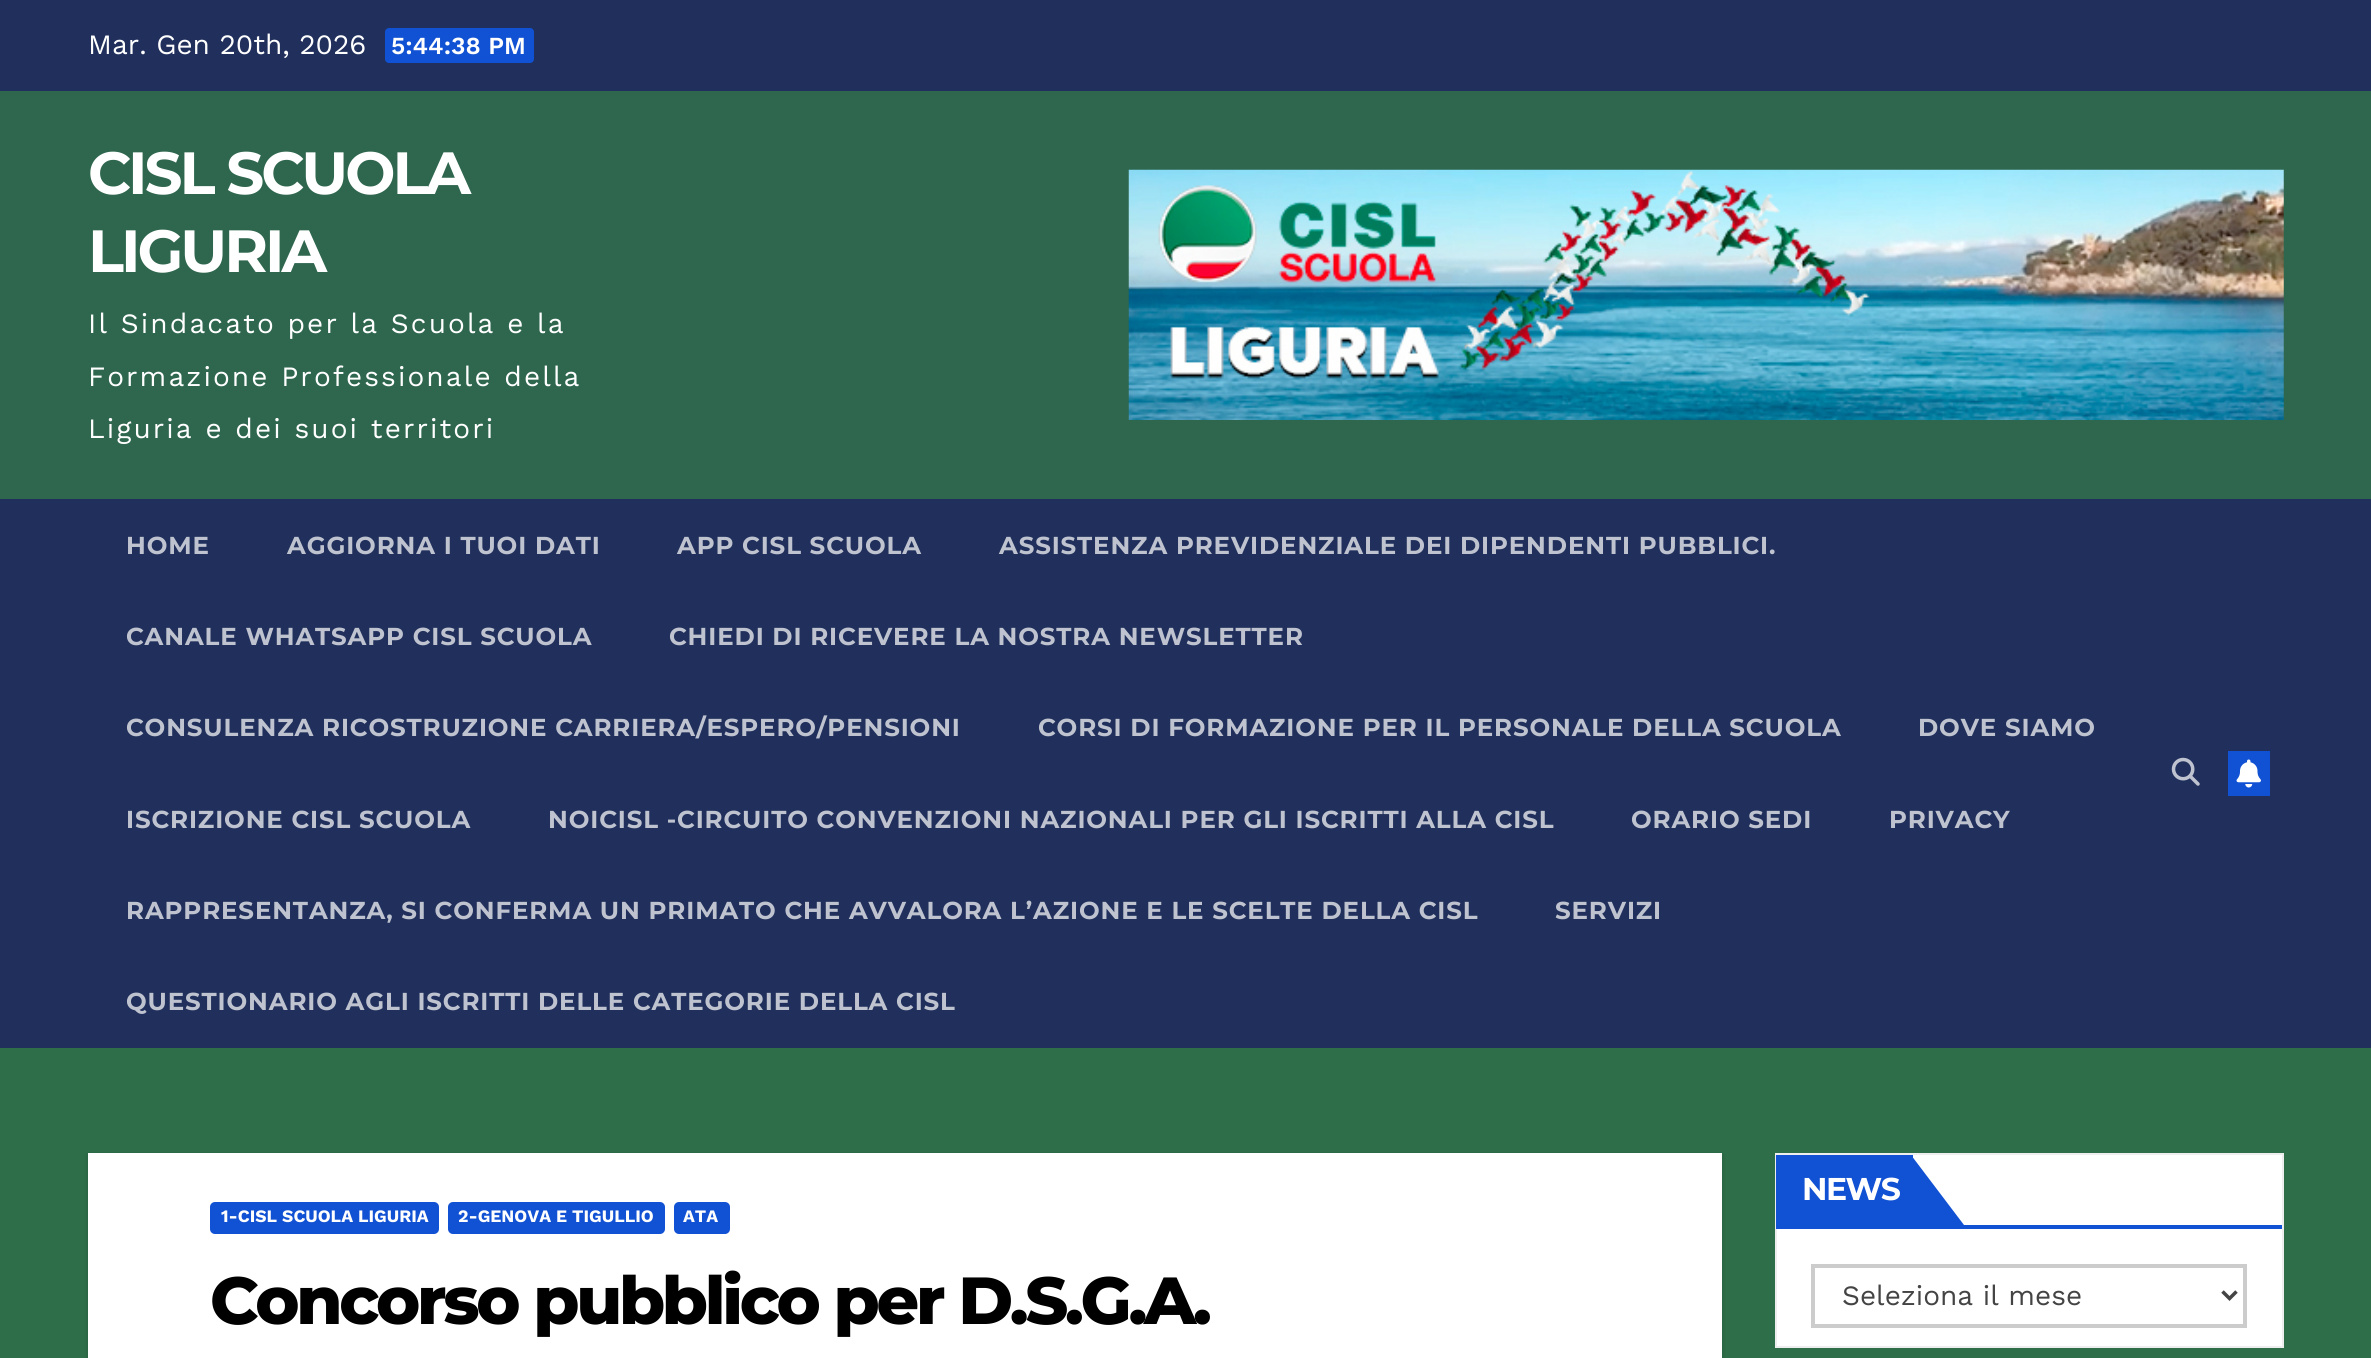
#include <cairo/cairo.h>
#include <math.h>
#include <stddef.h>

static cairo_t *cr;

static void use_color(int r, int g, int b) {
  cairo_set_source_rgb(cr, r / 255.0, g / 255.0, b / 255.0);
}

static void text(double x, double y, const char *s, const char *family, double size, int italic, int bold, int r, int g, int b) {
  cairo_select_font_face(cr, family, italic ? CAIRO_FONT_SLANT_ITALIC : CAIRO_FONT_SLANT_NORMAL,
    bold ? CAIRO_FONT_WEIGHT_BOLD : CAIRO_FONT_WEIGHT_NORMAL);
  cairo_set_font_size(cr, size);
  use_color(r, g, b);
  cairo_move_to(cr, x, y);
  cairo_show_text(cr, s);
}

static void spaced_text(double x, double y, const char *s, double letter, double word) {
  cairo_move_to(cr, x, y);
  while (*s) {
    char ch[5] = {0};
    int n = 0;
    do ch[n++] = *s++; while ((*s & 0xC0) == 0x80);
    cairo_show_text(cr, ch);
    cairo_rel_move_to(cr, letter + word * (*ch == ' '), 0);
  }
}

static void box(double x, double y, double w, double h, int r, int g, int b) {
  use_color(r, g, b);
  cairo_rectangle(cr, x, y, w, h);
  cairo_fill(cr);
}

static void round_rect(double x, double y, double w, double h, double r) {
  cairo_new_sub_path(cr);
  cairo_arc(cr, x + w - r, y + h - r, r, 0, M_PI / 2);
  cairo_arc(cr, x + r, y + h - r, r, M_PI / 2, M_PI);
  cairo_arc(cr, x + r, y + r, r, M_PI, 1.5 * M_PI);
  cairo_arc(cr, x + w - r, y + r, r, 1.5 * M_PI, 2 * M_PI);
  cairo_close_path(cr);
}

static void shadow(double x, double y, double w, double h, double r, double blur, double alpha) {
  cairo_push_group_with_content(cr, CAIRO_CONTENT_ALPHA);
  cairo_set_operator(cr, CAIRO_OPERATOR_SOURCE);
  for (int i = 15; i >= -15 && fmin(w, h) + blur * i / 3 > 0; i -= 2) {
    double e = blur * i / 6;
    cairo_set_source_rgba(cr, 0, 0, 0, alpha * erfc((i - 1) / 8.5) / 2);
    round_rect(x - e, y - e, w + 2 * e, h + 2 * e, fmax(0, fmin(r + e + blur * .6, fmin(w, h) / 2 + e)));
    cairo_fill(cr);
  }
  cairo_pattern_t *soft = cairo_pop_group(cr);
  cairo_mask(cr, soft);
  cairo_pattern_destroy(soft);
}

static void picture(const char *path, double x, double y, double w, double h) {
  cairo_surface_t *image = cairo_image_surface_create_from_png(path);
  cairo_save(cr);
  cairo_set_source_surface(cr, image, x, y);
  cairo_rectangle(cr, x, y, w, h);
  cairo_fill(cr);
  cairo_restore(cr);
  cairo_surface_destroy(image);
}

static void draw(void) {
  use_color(46, 110, 73);
  cairo_paint(cr);
  box(0, 0, 2371, 91, 32, 47, 91);
  use_color(17, 81, 211);
  round_rect(385, 28, 149, 35, 4);
  cairo_fill(cr);
  box(0, 91, 2371, 408, 46, 102, 78);
  picture("img_01.png", 1128, 169, 1156, 251);
  box(0, 499, 2371, 549, 32, 47, 91);
  picture("img_02.png", 2171, 757, 29, 29);
  box(2228, 751, 42, 45, 17, 81, 211);
  picture("img_03.png", 2236, 759, 25, 29);
  use_color(0, 0, 0);
  shadow(88, 1155, 1634, 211, 0, 2.5, 0.15);
  box(88, 1153, 1634, 205, 255, 255, 255);
  use_color(17, 81, 211);
  round_rect(210, 1202, 229, 32, 5);
  cairo_fill(cr);
  round_rect(448, 1202, 217, 32, 5);
  cairo_fill(cr);
  round_rect(674, 1202, 56, 32, 5);
  cairo_fill(cr);
  use_color(255, 255, 255);
  cairo_rectangle(cr, 1776, 1154, 507, 193);
  cairo_fill_preserve(cr);
  use_color(238, 238, 238);
  cairo_stroke(cr);
  box(1776, 1225, 506, 4, 17, 81, 211);
  box(1776, 1155, 137, 70, 17, 81, 211);
  cairo_new_path(cr);
  cairo_move_to(cr, 1911, 1225);
  cairo_line_to(cr, 1911, 1155);
  cairo_line_to(cr, 1964, 1225);
  cairo_close_path(cr);
  cairo_fill(cr);
  cairo_rectangle(cr, 1813, 1266, 432, 60);
  use_color(204, 204, 204);
  cairo_set_line_width(cr, 4);
  cairo_stroke(cr);
  cairo_new_path(cr);
  cairo_move_to(cr, 2222.5, 1291.5);
  cairo_line_to(cr, 2229.5, 1298.5);
  cairo_line_to(cr, 2236.5, 1291.5);
  use_color(68, 68, 68);
  cairo_set_line_width(cr, 3.5);
  cairo_stroke(cr);
  text(88, 54, "Mar. Gen 20th, 2026", "Work Sans", 28, 0, 0, 255, 255, 255);
  text(391, 54, "5:44:38 PM", "Work Sans SemiBold", 24.5, 0, 0, 255, 255, 255);
  cairo_select_font_face(cr, "Montserrat", CAIRO_FONT_SLANT_NORMAL, CAIRO_FONT_WEIGHT_BOLD);
  cairo_set_font_size(cr, 59.5);
  spaced_text(88, 194, "CISL SCUOLA", -3, 0);
  spaced_text(88, 272, "LIGURIA", -3, 0);
  cairo_select_font_face(cr, "Work Sans", CAIRO_FONT_SLANT_NORMAL, CAIRO_FONT_WEIGHT_NORMAL);
  cairo_set_font_size(cr, 28);
  spaced_text(88, 333, "Il Sindacato per la Scuola e la", 2.1, 0);
  spaced_text(88, 386, "Formazione Professionale della", 2.1, 0);
  spaced_text(88, 438, "Liguria e dei suoi territori", 2.1, 0);
  cairo_select_font_face(cr, "Montserrat", CAIRO_FONT_SLANT_NORMAL, CAIRO_FONT_WEIGHT_BOLD);
  cairo_set_font_size(cr, 24.5);
  use_color(190, 195, 207);
  spaced_text(126, 554, "HOME", 0.88, 0);
  spaced_text(287, 554, "AGGIORNA I TUOI DATI", 0.88, 0);
  spaced_text(677, 554, "APP CISL SCUOLA", 0.88, 0);
  spaced_text(999, 554, "ASSISTENZA PREVIDENZIALE DEI DIPENDENTI PUBBLICI.", 0.88, 0);
  spaced_text(126, 645, "CANALE WHATSAPP CISL SCUOLA", 0.88, 0);
  spaced_text(669, 645, "CHIEDI DI RICEVERE LA NOSTRA NEWSLETTER", 0.88, 0);
  spaced_text(126, 736, "CONSULENZA RICOSTRUZIONE CARRIERA/ESPERO/PENSIONI", 0.88, 0);
  spaced_text(1038, 736, "CORSI DI FORMAZIONE PER IL PERSONALE DELLA SCUOLA", 0.88, 0);
  spaced_text(1918, 736, "DOVE SIAMO", 0.88, 0);
  spaced_text(126, 828, "ISCRIZIONE CISL SCUOLA", 0.88, 0);
  spaced_text(548, 828, "NOICISL -CIRCUITO CONVENZIONI NAZIONALI PER GLI ISCRITTI ALLA CISL", 0.88, 0);
  spaced_text(1631, 828, "ORARIO SEDI", 0.88, 0);
  spaced_text(1889, 828, "PRIVACY", 0.88, 0);
  spaced_text(126, 919, "RAPPRESENTANZA, SI CONFERMA UN PRIMATO CHE AVVALORA L’AZIONE E LE SCELTE DELLA CISL", 0.88, 0);
  spaced_text(1555, 919, "SERVIZI", 0.88, 0);
  spaced_text(126, 1010, "QUESTIONARIO AGLI ISCRITTI DELLE CATEGORIE DELLA CISL", 0.88, 0);
  text(221, 1222, "1-CISL SCUOLA LIGURIA", "Work Sans", 17.5, 0, 1, 255, 255, 255);
  text(458, 1222, "2-GENOVA E TIGULLIO", "Work Sans", 17.5, 0, 1, 255, 255, 255);
  text(683, 1222, "ATA", "Work Sans", 17.5, 0, 1, 255, 255, 255);
  cairo_select_font_face(cr, "Montserrat ExtraBold", CAIRO_FONT_SLANT_NORMAL, CAIRO_FONT_WEIGHT_NORMAL);
  cairo_set_font_size(cr, 66.5);
  use_color(0, 0, 0);
  spaced_text(210, 1324, "Concorso pubblico per D.S.G.A.", -3.3, 0);
  cairo_select_font_face(cr, "Montserrat", CAIRO_FONT_SLANT_NORMAL, CAIRO_FONT_WEIGHT_BOLD);
  cairo_set_font_size(cr, 31.5);
  use_color(255, 255, 255);
  spaced_text(1802, 1200, "NEWS", -1.5, 0);
  text(1842, 1305, "Seleziona il mese", "Work Sans", 28, 0, 0, 68, 68, 68);
}

int main(void) {
  cairo_surface_t *surface = cairo_image_surface_create(CAIRO_FORMAT_RGB24, 2371, 1358);
  cr = cairo_create(surface);
  cairo_font_options_t *options = cairo_font_options_create();
  cairo_font_options_set_hint_metrics(options, CAIRO_HINT_METRICS_OFF);
  cairo_font_options_set_hint_style(options, CAIRO_HINT_STYLE_NONE);
  cairo_set_font_options(cr, options);
  cairo_set_miter_limit(cr, 4);
  draw();
  cairo_surface_write_to_png(surface, "out.png");
  cairo_font_options_destroy(options);
  cairo_destroy(cr);
  cairo_surface_destroy(surface);
  return 0;
}
